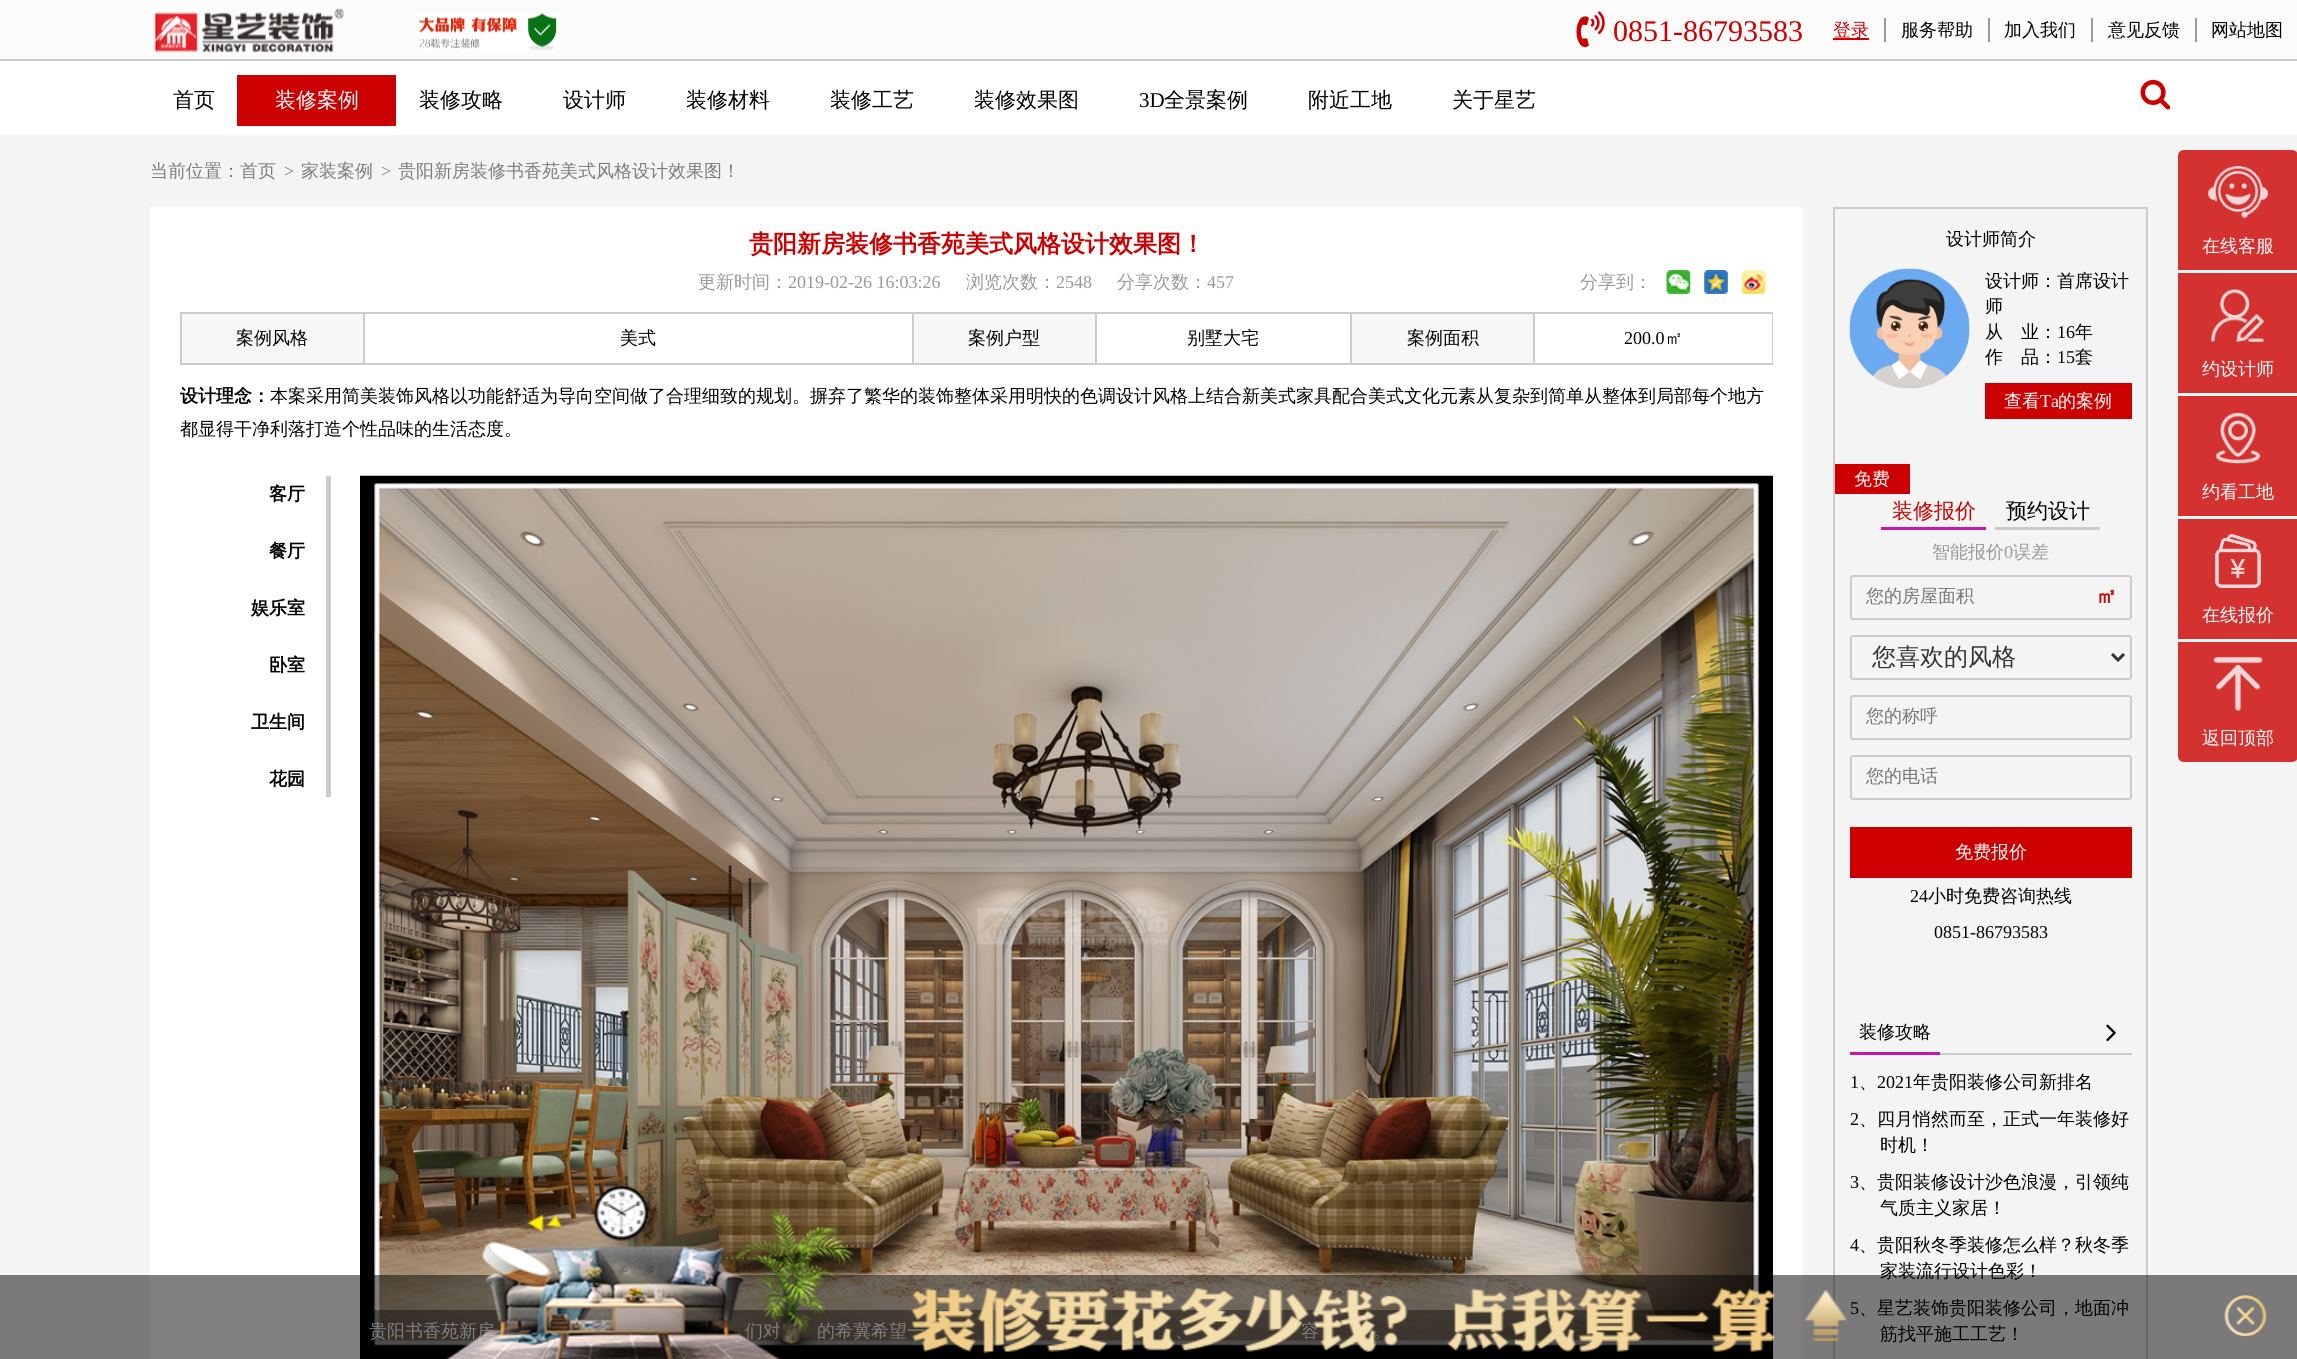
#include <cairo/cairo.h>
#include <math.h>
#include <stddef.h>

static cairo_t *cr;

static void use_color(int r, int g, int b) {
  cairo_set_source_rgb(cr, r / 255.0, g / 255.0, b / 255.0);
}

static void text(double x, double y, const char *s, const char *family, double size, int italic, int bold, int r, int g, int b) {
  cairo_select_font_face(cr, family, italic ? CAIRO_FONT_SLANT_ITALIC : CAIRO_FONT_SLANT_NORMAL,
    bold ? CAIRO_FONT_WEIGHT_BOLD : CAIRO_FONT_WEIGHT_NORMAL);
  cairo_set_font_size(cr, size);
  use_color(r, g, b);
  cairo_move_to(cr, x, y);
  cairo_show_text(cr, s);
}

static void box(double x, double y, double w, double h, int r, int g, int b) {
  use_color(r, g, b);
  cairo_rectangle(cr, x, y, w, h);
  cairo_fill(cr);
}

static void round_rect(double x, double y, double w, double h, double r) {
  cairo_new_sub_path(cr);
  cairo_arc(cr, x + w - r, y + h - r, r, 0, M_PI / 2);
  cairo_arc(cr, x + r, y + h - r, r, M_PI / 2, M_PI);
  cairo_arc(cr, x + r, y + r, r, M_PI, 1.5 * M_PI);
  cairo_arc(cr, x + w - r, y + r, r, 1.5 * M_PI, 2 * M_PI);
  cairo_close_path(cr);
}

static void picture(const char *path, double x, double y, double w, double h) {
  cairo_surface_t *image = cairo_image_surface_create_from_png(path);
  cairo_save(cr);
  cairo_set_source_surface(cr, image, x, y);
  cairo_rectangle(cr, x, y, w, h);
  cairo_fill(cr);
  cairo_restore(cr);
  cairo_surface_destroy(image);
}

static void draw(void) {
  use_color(244, 244, 244);
  cairo_paint(cr);
  box(0, 0, 2297, 59, 251, 251, 251);
  box(0, 59, 2297, 2, 204, 204, 204);
  picture("img_01.png", 154, 8, 190, 45);
  picture("img_02.png", 419, 13, 138, 37);
  picture("img_03.png", 1576, 11, 29, 37);
  box(1833, 38, 36, 2, 204, 0, 0);
  box(1884, 18, 2, 24, 153, 153, 153);
  box(1988, 18, 2, 24, 153, 153, 153);
  box(2091, 18, 2, 24, 153, 153, 153);
  box(2195, 18, 2, 24, 153, 153, 153);
  box(0, 61, 2297, 74, 255, 255, 255);
  box(237, 75, 159, 51, 204, 0, 0);
  picture("img_04.png", 2140, 79, 31, 31);
  box(150, 207, 1653, 1152, 255, 255, 255);
  picture("img_05.png", 1666, 270, 25, 24);
  picture("img_06.png", 1704, 270, 24, 24);
  picture("img_07.png", 1741, 270, 25, 24);
  box(180, 312, 1593, 2, 204, 204, 204);
  box(180, 312, 2, 53, 204, 204, 204);
  box(182, 314, 181, 49, 247, 247, 247);
  box(1772, 312, 1, 53, 204, 204, 204);
  box(1533, 363, 240, 2, 204, 204, 204);
  box(1533, 312, 2, 53, 204, 204, 204);
  box(1350, 363, 185, 2, 204, 204, 204);
  box(1350, 312, 2, 53, 204, 204, 204);
  box(1095, 363, 257, 2, 204, 204, 204);
  box(1095, 312, 2, 53, 204, 204, 204);
  box(912, 363, 185, 2, 204, 204, 204);
  box(912, 312, 2, 53, 204, 204, 204);
  box(363, 363, 551, 2, 204, 204, 204);
  box(363, 312, 2, 53, 204, 204, 204);
  box(180, 363, 185, 2, 204, 204, 204);
  box(914, 314, 181, 49, 247, 247, 247);
  box(1352, 314, 181, 49, 247, 247, 247);
  box(326, 476, 5, 321, 204, 204, 204);
  picture("img_08.png", 360, 475, 1413, 878);
  cairo_set_source_rgba(cr, 0, 0, 0, 0.4);
  cairo_rectangle(cr, 374, 1310, 1385, 36);
  cairo_fill(cr);
  box(360, 1353, 1413, 6, 0, 0, 0);
  cairo_rectangle(cr, 1834, 208, 313, 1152);
  use_color(204, 204, 204);
  cairo_stroke(cr);
  picture("img_09.png", 1849, 268, 121, 121);
  box(1985, 383, 147, 36, 204, 0, 0);
  box(1835, 464, 75, 30, 204, 0, 0);
  box(1881, 527, 105, 3, 197, 22, 176);
  box(1995, 527, 105, 3, 204, 204, 204);
  round_rect(1851, 576, 280, 43, 2);
  cairo_stroke(cr);
  round_rect(1851, 636, 280, 43, 2);
  cairo_stroke(cr);
  cairo_new_path(cr);
  cairo_move_to(cr, 2112, 654);
  cairo_line_to(cr, 2118, 660);
  cairo_line_to(cr, 2124, 654);
  use_color(51, 51, 51);
  cairo_set_line_width(cr, 3);
  cairo_stroke(cr);
  round_rect(1851, 696, 280, 43, 2);
  use_color(204, 204, 204);
  cairo_set_line_width(cr, 2);
  cairo_stroke(cr);
  round_rect(1851, 756, 280, 43, 2);
  cairo_stroke(cr);
  box(1850, 827, 282, 51, 204, 0, 0);
  box(1940, 1053, 192, 2, 204, 204, 204);
  box(1850, 1052, 90, 3, 197, 22, 176);
  picture("img_10.png", 2106, 1024, 10, 18);
  use_color(212, 49, 49);
  cairo_new_path(cr);
  cairo_move_to(cr, 2184, 150);
  cairo_line_to(cr, 2292, 150);
  cairo_curve_to(cr, 2295.5, 150, 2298, 152.5, 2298, 156);
  cairo_line_to(cr, 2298, 270);
  cairo_line_to(cr, 2178, 270);
  cairo_line_to(cr, 2178, 156);
  cairo_curve_to(cr, 2178, 152.5, 2180.5, 150, 2184, 150);
  cairo_close_path(cr);
  cairo_fill(cr);
  picture("img_11.png", 2208, 166, 60, 53);
  box(2178, 273, 119, 120, 212, 49, 49);
  picture("img_12.png", 2211, 289, 53, 53);
  box(2178, 396, 119, 120, 212, 49, 49);
  picture("img_13.png", 2215, 412, 46, 52);
  box(2178, 519, 119, 120, 212, 49, 49);
  picture("img_14.png", 2215, 534, 46, 54);
  cairo_new_path(cr);
  cairo_move_to(cr, 2178, 642);
  cairo_line_to(cr, 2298, 642);
  cairo_line_to(cr, 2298, 756);
  cairo_curve_to(cr, 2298, 759.5, 2295.5, 762, 2292, 762);
  cairo_line_to(cr, 2184, 762);
  cairo_curve_to(cr, 2180.5, 762, 2178, 759.5, 2178, 756);
  cairo_close_path(cr);
  cairo_fill(cr);
  picture("img_15.png", 2213, 657, 50, 54);
  text(1613, 41, "0851-86793583", "Liberation Serif", 30, 0, 0, 204, 0, 0);
  text(1833, 36, "登录", "WenQuanYi Zen Hei Medium", 18, 0, 0, 204, 0, 0);
  text(1901, 36, "服务帮助", "WenQuanYi Zen Hei Medium", 18, 0, 0, 0, 0, 0);
  text(2004, 36, "加入我们", "WenQuanYi Zen Hei Medium", 18, 0, 0, 0, 0, 0);
  text(2108, 36, "意见反馈", "WenQuanYi Zen Hei Medium", 18, 0, 0, 0, 0, 0);
  text(2211, 36, "网站地图", "WenQuanYi Zen Hei Medium", 18, 0, 0, 0, 0, 0);
  text(173, 107, "首页", "WenQuanYi Zen Hei Medium", 21, 0, 0, 0, 0, 0);
  text(275, 107, "装修案例", "WenQuanYi Zen Hei Medium", 21, 0, 0, 255, 255, 255);
  text(419, 107, "装修攻略", "WenQuanYi Zen Hei Medium", 21, 0, 0, 0, 0, 0);
  text(563, 107, "设计师", "WenQuanYi Zen Hei Medium", 21, 0, 0, 0, 0, 0);
  text(686, 107, "装修材料", "WenQuanYi Zen Hei Medium", 21, 0, 0, 0, 0, 0);
  text(830, 107, "装修工艺", "WenQuanYi Zen Hei Medium", 21, 0, 0, 0, 0, 0);
  text(974, 107, "装修效果图", "WenQuanYi Zen Hei Medium", 21, 0, 0, 0, 0, 0);
  text(1139, 107, "3D", "Liberation Serif", 21, 0, 0, 0, 0, 0);
  text(1164, 107, "全景案例", "WenQuanYi Zen Hei Medium", 21, 0, 0, 0, 0, 0);
  text(1308, 107, "附近工地", "WenQuanYi Zen Hei Medium", 21, 0, 0, 0, 0, 0);
  text(1452, 107, "关于星艺", "WenQuanYi Zen Hei Medium", 21, 0, 0, 0, 0, 0);
  text(150, 177, "当前位置：首页", "WenQuanYi Zen Hei Medium", 18, 0, 0, 125, 124, 124);
  text(284, 177, ">", "Liberation Serif", 18, 0, 0, 125, 124, 124);
  text(301, 177, "家装案例", "WenQuanYi Zen Hei Medium", 18, 0, 0, 125, 124, 124);
  text(381, 177, ">", "Liberation Serif", 18, 0, 0, 125, 124, 124);
  text(398, 177, "贵阳新房装修书香苑美式风格设计效果图！", "WenQuanYi Zen Hei Medium", 18, 0, 0, 125, 124, 124);
  text(749, 252, "贵阳新房装修书香苑美式风格设计效果图！", "WenQuanYi Zen Hei", 24, 0, 1, 204, 0, 0);
  text(698, 288, "更新时间：", "WenQuanYi Zen Hei Medium", 18, 0, 0, 153, 153, 153);
  text(788, 288, "2019-02-26 16:03:26", "Liberation Serif", 18, 0, 0, 153, 153, 153);
  text(966, 288, "浏览次数：", "WenQuanYi Zen Hei Medium", 18, 0, 0, 153, 153, 153);
  text(1056, 288, "2548", "Liberation Serif", 18, 0, 0, 153, 153, 153);
  text(1117, 288, "分享次数：", "WenQuanYi Zen Hei Medium", 18, 0, 0, 153, 153, 153);
  text(1207, 288, "457", "Liberation Serif", 18, 0, 0, 153, 153, 153);
  text(1580, 288, "分享到：", "WenQuanYi Zen Hei Medium", 18, 0, 0, 153, 153, 153);
  text(236, 344, "案例风格", "WenQuanYi Zen Hei Medium", 18, 0, 0, 0, 0, 0);
  text(620, 344, "美式", "WenQuanYi Zen Hei Medium", 18, 0, 0, 0, 0, 0);
  text(968, 344, "案例户型", "WenQuanYi Zen Hei Medium", 18, 0, 0, 0, 0, 0);
  text(1187, 344, "别墅大宅", "WenQuanYi Zen Hei Medium", 18, 0, 0, 0, 0, 0);
  text(1407, 344, "案例面积", "WenQuanYi Zen Hei Medium", 18, 0, 0, 0, 0, 0);
  text(1624, 344, "200.0", "Liberation Serif", 18, 0, 0, 0, 0, 0);
  text(1665, 344, "㎡", "WenQuanYi Zen Hei Medium", 18, 0, 0, 0, 0, 0);
  text(180, 402, "设计理念：", "WenQuanYi Zen Hei", 18, 0, 1, 0, 0, 0);
  text(270, 402, "本案采用简美装饰风格以功能舒适为导向空间做了合理细致的规划。摒弃了繁华的装饰整体采用明快的色调设计风格上结合新美式家具配合美式文化元素从复杂到简单从整体到局部每个地方", "WenQuanYi Zen Hei Medium", 18, 0, 0, 0, 0, 0);
  text(180, 435, "都显得干净利落打造个性品味的生活态度。", "WenQuanYi Zen Hei Medium", 18, 0, 0, 0, 0, 0);
  text(269, 500, "客厅", "WenQuanYi Zen Hei", 18, 0, 1, 0, 0, 0);
  text(269, 557, "餐厅", "WenQuanYi Zen Hei", 18, 0, 1, 0, 0, 0);
  text(251, 614, "娱乐室", "WenQuanYi Zen Hei", 18, 0, 1, 0, 0, 0);
  text(269, 671, "卧室", "WenQuanYi Zen Hei", 18, 0, 1, 0, 0, 0);
  text(251, 728, "卫生间", "WenQuanYi Zen Hei", 18, 0, 1, 0, 0, 0);
  text(269, 785, "花园", "WenQuanYi Zen Hei", 18, 0, 1, 0, 0, 0);
  text(369, 1337, "贵阳书香苑新房", "WenQuanYi Zen Hei Medium", 18, 0, 0, 255, 255, 255);
  text(745, 1337, "们对", "WenQuanYi Zen Hei Medium", 18, 0, 0, 255, 255, 255);
  text(817, 1337, "的希冀希望一", "WenQuanYi Zen Hei Medium", 18, 0, 0, 255, 255, 255);
  text(1175, 1337, "、", "WenQuanYi Zen Hei Medium", 18, 0, 0, 255, 255, 255);
  text(1301, 1337, "容", "WenQuanYi Zen Hei Medium", 18, 0, 0, 255, 255, 255);
  text(1373, 1337, "。", "WenQuanYi Zen Hei Medium", 18, 0, 0, 255, 255, 255);
  text(1946, 245, "设计师简介", "WenQuanYi Zen Hei Medium", 18, 0, 0, 0, 0, 0);
  text(1985, 287, "设计师：首席设计", "WenQuanYi Zen Hei Medium", 18, 0, 0, 0, 0, 0);
  text(1985, 312, "师", "WenQuanYi Zen Hei Medium", 18, 0, 0, 0, 0, 0);
  text(1985, 338, "从　业：", "WenQuanYi Zen Hei Medium", 18, 0, 0, 0, 0, 0);
  text(2057, 338, "16", "Liberation Serif", 18, 0, 0, 0, 0, 0);
  text(2075, 338, "年", "WenQuanYi Zen Hei Medium", 18, 0, 0, 0, 0, 0);
  text(1985, 363, "作　品：", "WenQuanYi Zen Hei Medium", 18, 0, 0, 0, 0, 0);
  text(2057, 363, "15", "Liberation Serif", 18, 0, 0, 0, 0, 0);
  text(2075, 363, "套", "WenQuanYi Zen Hei Medium", 18, 0, 0, 0, 0, 0);
  text(2004, 407, "查看", "WenQuanYi Zen Hei Medium", 18, 0, 0, 255, 255, 255);
  text(2040, 407, "Ta", "Liberation Serif", 18, 0, 0, 255, 255, 255);
  text(2058, 407, "的案例", "WenQuanYi Zen Hei Medium", 18, 0, 0, 255, 255, 255);
  text(1854, 485, "免费", "WenQuanYi Zen Hei Medium", 18, 0, 0, 255, 255, 255);
  text(1892, 518, "装修报价", "WenQuanYi Zen Hei Medium", 21, 0, 0, 204, 0, 0);
  text(2006, 518, "预约设计", "WenQuanYi Zen Hei Medium", 21, 0, 0, 0, 0, 0);
  text(1932, 558, "智能报价", "WenQuanYi Zen Hei Medium", 18, 0, 0, 153, 153, 153);
  text(2004, 558, "0", "Liberation Serif", 18, 0, 0, 153, 153, 153);
  text(2013, 558, "误差", "WenQuanYi Zen Hei Medium", 18, 0, 0, 153, 153, 153);
  text(1866, 602, "您的房屋面积", "WenQuanYi Zen Hei Medium", 18, 0, 0, 117, 117, 117);
  text(2096, 603, "㎡", "WenQuanYi Zen Hei", 21, 0, 1, 204, 0, 0);
  text(1872, 665, "您喜欢的风格", "WenQuanYi Zen Hei Medium", 24, 0, 0, 51, 51, 51);
  text(1866, 722, "您的称呼", "WenQuanYi Zen Hei Medium", 18, 0, 0, 117, 117, 117);
  text(1866, 782, "您的电话", "WenQuanYi Zen Hei Medium", 18, 0, 0, 117, 117, 117);
  text(1955, 858, "免费报价", "WenQuanYi Zen Hei Medium", 18, 0, 0, 255, 255, 255);
  text(1910, 902, "24", "Liberation Serif", 18, 0, 0, 0, 0, 0);
  text(1928, 902, "小时免费咨询热线", "WenQuanYi Zen Hei Medium", 18, 0, 0, 0, 0, 0);
  text(1934, 938, "0851-86793583", "Liberation Serif", 18, 0, 0, 0, 0, 0);
  text(1859, 1038, "装修攻略", "WenQuanYi Zen Hei Medium", 18, 0, 0, 0, 0, 0);
  text(1850, 1088, "1", "Liberation Serif", 18, 0, 0, 0, 0, 0);
  text(1859, 1088, "、", "WenQuanYi Zen Hei Medium", 18, 0, 0, 0, 0, 0);
  text(1877, 1088, "2021", "Liberation Serif", 18, 0, 0, 0, 0, 0);
  text(1913, 1088, "年贵阳装修公司新排名", "WenQuanYi Zen Hei Medium", 18, 0, 0, 0, 0, 0);
  text(1850, 1125, "2", "Liberation Serif", 18, 0, 0, 0, 0, 0);
  text(1859, 1125, "、四月悄然而至，正式一年装修好", "WenQuanYi Zen Hei Medium", 18, 0, 0, 0, 0, 0);
  text(1880, 1151, "时机！", "WenQuanYi Zen Hei Medium", 18, 0, 0, 0, 0, 0);
  text(1850, 1188, "3", "Liberation Serif", 18, 0, 0, 0, 0, 0);
  text(1859, 1188, "、贵阳装修设计沙色浪漫，引领纯", "WenQuanYi Zen Hei Medium", 18, 0, 0, 0, 0, 0);
  text(1880, 1214, "气质主义家居！", "WenQuanYi Zen Hei Medium", 18, 0, 0, 0, 0, 0);
  text(1850, 1251, "4", "Liberation Serif", 18, 0, 0, 0, 0, 0);
  text(1859, 1251, "、贵阳秋冬季装修怎么样？秋冬季", "WenQuanYi Zen Hei Medium", 18, 0, 0, 0, 0, 0);
  text(1880, 1277, "家装流行设计色彩！", "WenQuanYi Zen Hei Medium", 18, 0, 0, 0, 0, 0);
  text(1850, 1314, "5", "Liberation Serif", 18, 0, 0, 0, 0, 0);
  text(1859, 1314, "、星艺装饰贵阳装修公司，地面冲", "WenQuanYi Zen Hei Medium", 18, 0, 0, 0, 0, 0);
  text(1880, 1340, "筋找平施工工艺！", "WenQuanYi Zen Hei Medium", 18, 0, 0, 0, 0, 0);
  text(2202, 252, "在线客服", "WenQuanYi Zen Hei Medium", 18, 0, 0, 255, 255, 255);
  text(2202, 375, "约设计师", "WenQuanYi Zen Hei Medium", 18, 0, 0, 255, 255, 255);
  text(2202, 498, "约看工地", "WenQuanYi Zen Hei Medium", 18, 0, 0, 255, 255, 255);
  text(2202, 621, "在线报价", "WenQuanYi Zen Hei Medium", 18, 0, 0, 255, 255, 255);
  text(2202, 744, "返回顶部", "WenQuanYi Zen Hei Medium", 18, 0, 0, 255, 255, 255);
  cairo_set_source_rgba(cr, 0, 0, 0, 0.5);
  cairo_rectangle(cr, 0, 1275, 2297, 84);
  cairo_fill(cr);
  picture("img_16.png", 445, 1186, 410, 173);
  picture("img_17.png", 911, 1287, 865, 67);
  picture("img_18.png", 1804, 1290, 43, 51);
  picture("img_19.png", 2224, 1295, 43, 42);
}

int main(void) {
  cairo_surface_t *surface = cairo_image_surface_create(CAIRO_FORMAT_RGB24, 2297, 1359);
  cr = cairo_create(surface);
  cairo_font_options_t *options = cairo_font_options_create();
  cairo_font_options_set_hint_metrics(options, CAIRO_HINT_METRICS_OFF);
  cairo_font_options_set_hint_style(options, CAIRO_HINT_STYLE_NONE);
  cairo_set_font_options(cr, options);
  cairo_set_miter_limit(cr, 4);
  draw();
  cairo_surface_write_to_png(surface, "out.png");
  cairo_font_options_destroy(options);
  cairo_destroy(cr);
  cairo_surface_destroy(surface);
  return 0;
}
